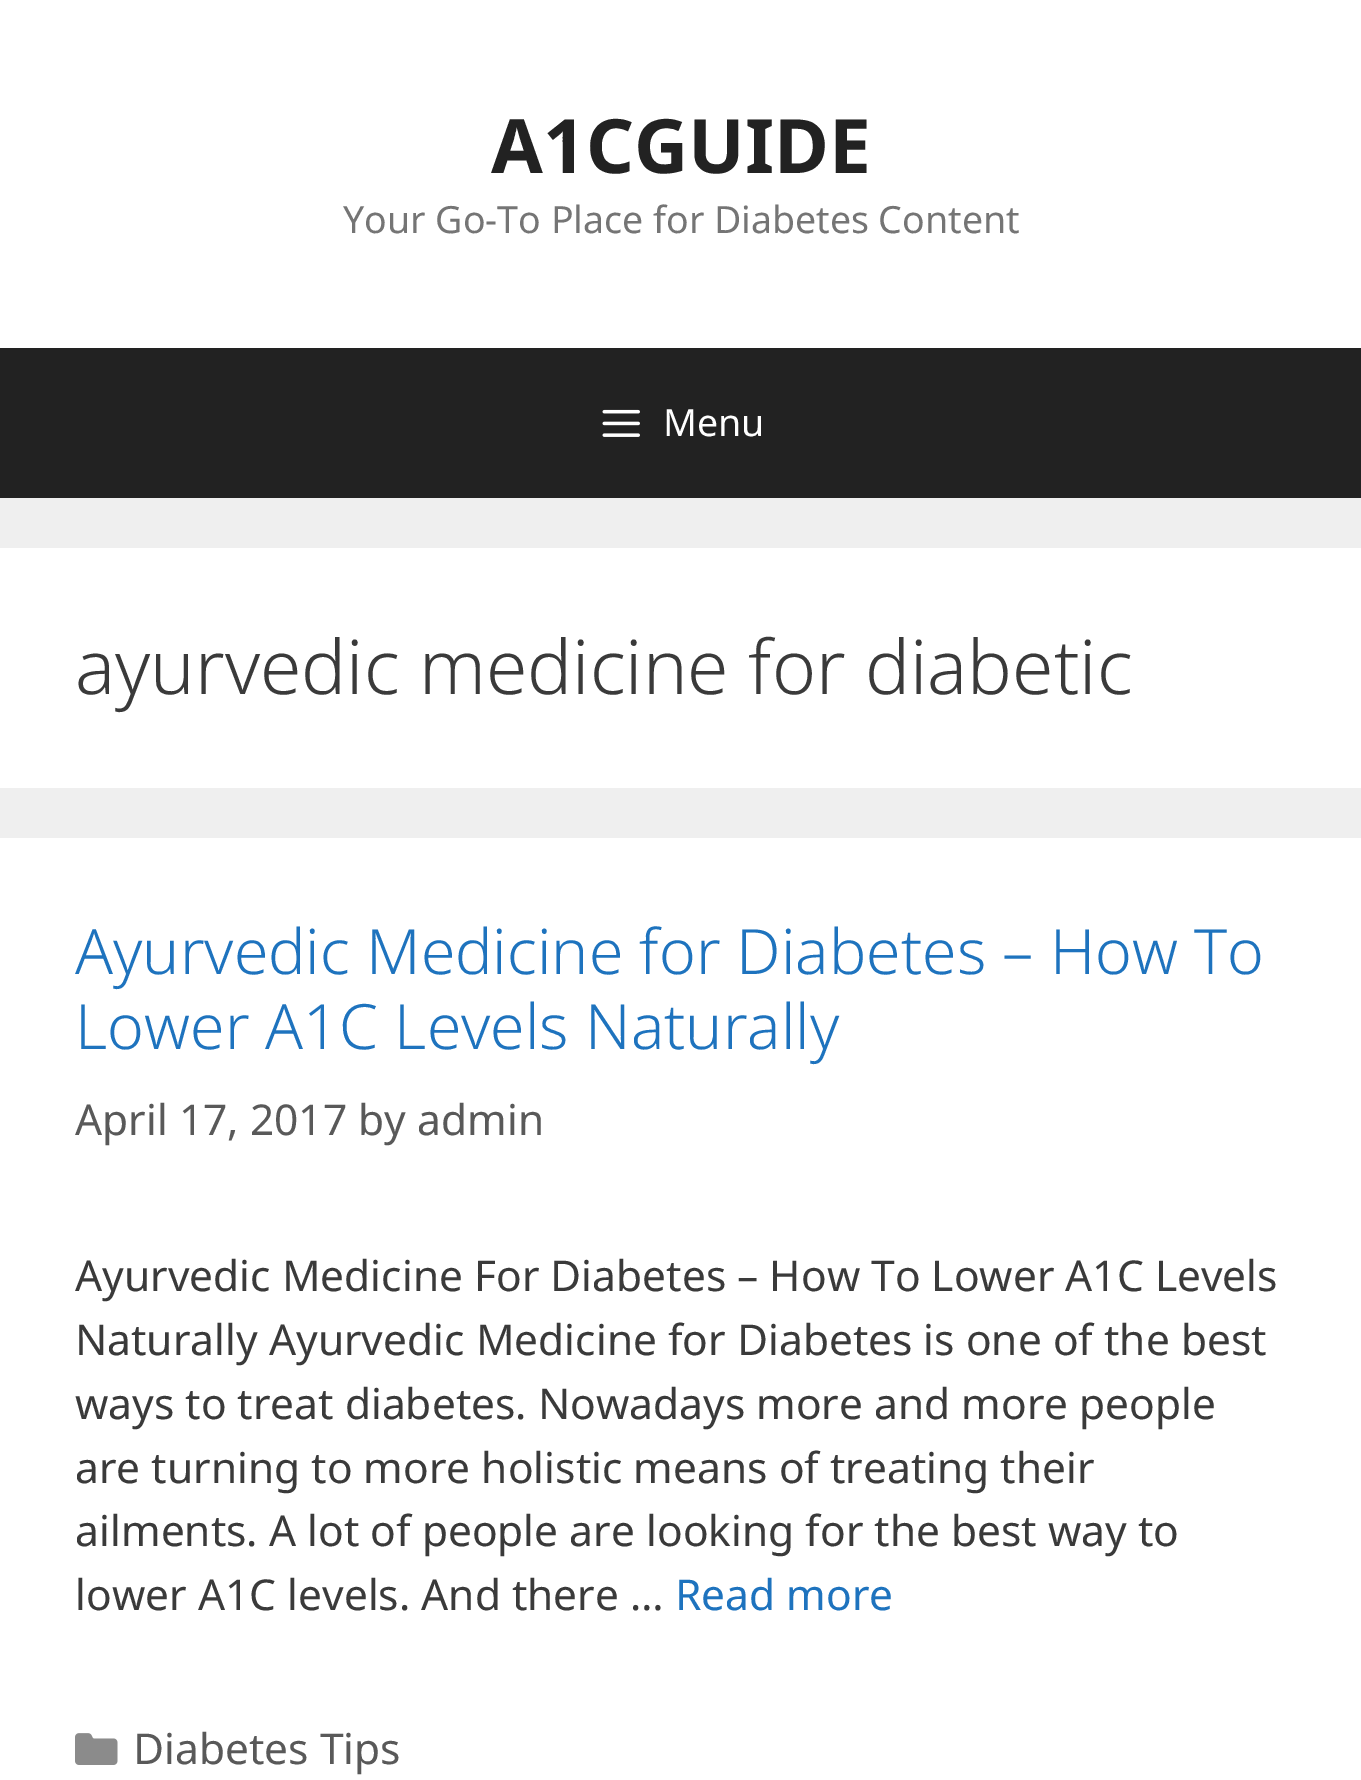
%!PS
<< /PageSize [1361 1780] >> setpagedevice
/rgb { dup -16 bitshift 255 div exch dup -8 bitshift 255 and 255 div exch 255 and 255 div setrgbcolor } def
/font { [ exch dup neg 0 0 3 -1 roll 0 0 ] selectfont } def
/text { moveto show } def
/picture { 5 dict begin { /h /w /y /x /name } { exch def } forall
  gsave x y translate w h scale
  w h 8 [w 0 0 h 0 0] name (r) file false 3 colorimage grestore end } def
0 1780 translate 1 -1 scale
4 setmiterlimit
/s1 { /NotoSans-Bold 75 font 16#222222 rgb } def
/s2 { /NotoSans-Regular 37.5 font 16#757575 rgb } def
/s3 { /NotoSans-Regular 37.5 font 16#FFFFFF rgb } def
/s4 { /NotoSans-Light 75 font 16#3A3A3A rgb } def
/s5 { /NotoSans-Light 62.5 font 16#1E73BE rgb } def
/s6 { /NotoSans-Regular 42.5 font 16#595959 rgb } def
/s7 { /NotoSans-Regular 42.5 font 16#3A3A3A rgb } def
/s8 { /NotoSans-Regular 42.5 font 16#1E73BE rgb } def
16#EFEFEF rgb
0 0 1361 1780 rectfill
16#FFFFFF rgb
0 0 1361 348 rectfill
s1
(A1CGUIDE) 491 173 text
s2
(Your Go-To Place for Diabetes Content) 343 233 text
16#222222 rgb
0 348 1361 150 rectfill
(pic1.raw) 602 409 38 28 picture
s3
(Menu) 663 436 text
0 548 1361 240 rectfill
s4
(ayurvedic medicine for diabetic) 75 694 text
16#FFFFFF rgb
0 838 1361 942 rectfill
s5
(Ayurvedic Medicine for Diabetes – How To) 75 974 text
(Lower A1C Levels Naturally) 75 1049 text
s6
(April 17, 2017 by admin) 75 1135 text
s7
(Ayurvedic Medicine For Diabetes – How To Lower A1C Levels) 75 1291 text
(Naturally Ayurvedic Medicine for Diabetes is one of the best) 75 1355 text
(ways to treat diabetes. Nowadays more and more people) 75 1419 text
(are turning to more holistic means of treating their) 75 1483 text
(ailments. A lot of people are looking for the best way to) 75 1546 text
(lower A1C levels. And there …) 75 1610 text
s8
(Read more) 675 1610 text
(pic2.raw) 75 1733 43 32 picture
s6
(Diabetes Tips) 133 1764 text
showpage
